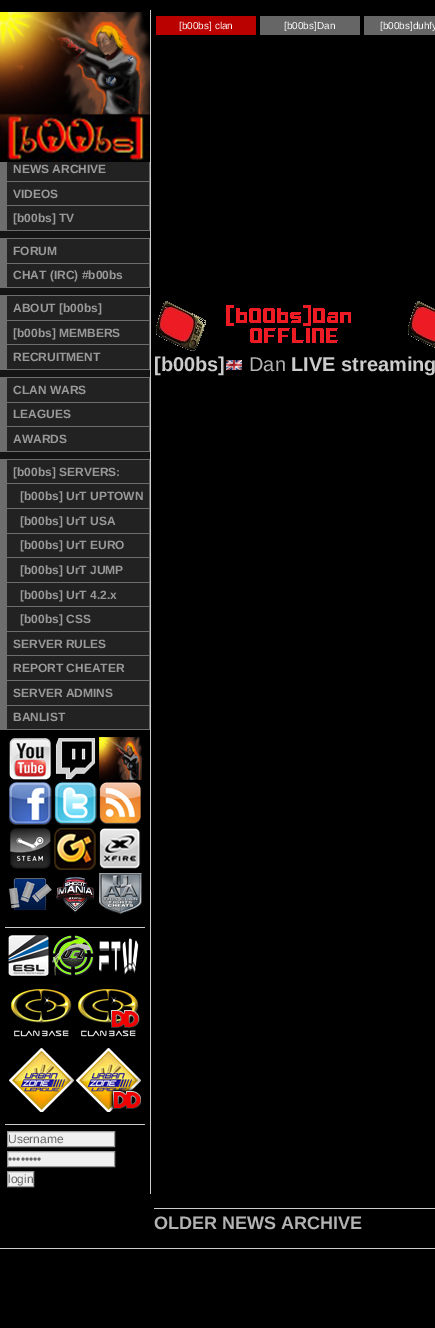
%!PS
<< /PageSize [435 1328] >> setpagedevice
/rgb { dup -16 bitshift 255 div exch dup -8 bitshift 255 and 255 div exch 255 and 255 div setrgbcolor } def
/font { [ exch dup neg 0 0 3 -1 roll 0 0 ] selectfont } def
/text { moveto show } def
/picture { 5 dict begin { /h /w /y /x /name } { exch def } forall
  gsave x y translate w h scale
  w h 8 [w 0 0 h 0 0] name (r) file false 3 colorimage grestore end } def
0 1328 translate 1 -1 scale
4 setmiterlimit
/s1 { /LiberationSans-Bold 12 font 16#999999 rgb } def
/s2 { /LiberationSans-Regular 12 font 16#666666 rgb } def
/s3 { /LiberationSans-Regular 10 font 16#FFFFFF rgb } def
/s4 { /LiberationSans-Bold 20 font 16#CCCCCC rgb } def
/s5 { /LiberationSans-Regular 20 font 16#B3B3B3 rgb } def
/s6 { /LiberationSans-Bold 18 font 16#B3B3B3 rgb } def
16#000000 rgb
0 0 435 1328 rectfill
16#CCCCCC rgb
150 10 1 1184 rectfill
(pic1.raw) 0 12 150 150 picture
16#151515 rgb
0 231 150 7 rectfill
16#6E6D6D rgb
0 181 150 1 rectfill
16#222222 rgb
7 162 142 19 rectfill
16#6E6D6D rgb
149 162 1 19 rectfill
0 162 7 19 rectfill
s1
(NEWS ARCHIVE) 13 173 text
16#6E6D6D rgb
0 205 150 1 rectfill
16#222222 rgb
7 182 142 23 rectfill
16#6E6D6D rgb
149 182 1 23 rectfill
0 182 7 23 rectfill
s1
(VIDEOS) 13 198 text
16#6E6D6D rgb
0 230 150 1 rectfill
16#222222 rgb
7 206 142 24 rectfill
16#6E6D6D rgb
149 206 1 24 rectfill
0 206 7 24 rectfill
s1
([b00bs] TV) 13 222 text
16#6E6D6D rgb
0 238 150 1 rectfill
16#151515 rgb
0 288 150 7 rectfill
16#6E6D6D rgb
0 263 150 1 rectfill
16#222222 rgb
7 239 142 24 rectfill
16#6E6D6D rgb
149 239 1 24 rectfill
0 239 7 24 rectfill
s1
(FORUM) 13 255 text
16#6E6D6D rgb
0 287 150 1 rectfill
16#222222 rgb
7 264 142 23 rectfill
16#6E6D6D rgb
149 264 1 23 rectfill
0 264 7 23 rectfill
s1
(CHAT \(IRC\) #b00bs) 13 279 text
16#6E6D6D rgb
0 295 150 1 rectfill
16#151515 rgb
0 370 150 7 rectfill
16#6E6D6D rgb
0 320 150 1 rectfill
16#222222 rgb
7 296 142 24 rectfill
16#6E6D6D rgb
149 296 1 24 rectfill
0 296 7 24 rectfill
s1
(ABOUT [b00bs]) 13 312 text
16#6E6D6D rgb
0 344 150 1 rectfill
16#222222 rgb
7 321 142 23 rectfill
16#6E6D6D rgb
149 321 1 23 rectfill
0 321 7 23 rectfill
s1
([b00bs] MEMBERS) 13 337 text
16#6E6D6D rgb
0 369 150 1 rectfill
16#222222 rgb
7 345 142 24 rectfill
16#6E6D6D rgb
149 345 1 24 rectfill
0 345 7 24 rectfill
s1
(RECRUITMENT) 13 361 text
16#6E6D6D rgb
0 377 150 1 rectfill
16#151515 rgb
0 452 150 7 rectfill
16#6E6D6D rgb
0 402 150 1 rectfill
16#222222 rgb
7 378 142 24 rectfill
16#6E6D6D rgb
149 378 1 24 rectfill
0 378 7 24 rectfill
s1
(CLAN WARS) 13 394 text
16#6E6D6D rgb
0 426 150 1 rectfill
16#222222 rgb
7 403 142 23 rectfill
16#6E6D6D rgb
149 403 1 23 rectfill
0 403 7 23 rectfill
s1
(LEAGUES) 13 418 text
16#6E6D6D rgb
0 451 150 1 rectfill
16#222222 rgb
7 427 142 24 rectfill
16#6E6D6D rgb
149 427 1 24 rectfill
0 427 7 24 rectfill
s1
(AWARDS) 13 443 text
16#6E6D6D rgb
0 459 150 1 rectfill
0 483 150 1 rectfill
16#222222 rgb
7 460 142 23 rectfill
16#6E6D6D rgb
149 460 1 23 rectfill
0 460 7 23 rectfill
s1
([b00bs] SERVERS:) 13 476 text
16#6E6D6D rgb
0 508 150 1 rectfill
16#222222 rgb
7 484 142 24 rectfill
16#6E6D6D rgb
149 484 1 24 rectfill
0 484 7 24 rectfill
s1
([b00bs] UrT UPTOWN) 20 500 text
16#6E6D6D rgb
0 533 150 1 rectfill
16#222222 rgb
7 509 142 24 rectfill
16#6E6D6D rgb
149 509 1 24 rectfill
0 509 7 24 rectfill
s1
([b00bs] UrT USA) 20 525 text
16#6E6D6D rgb
0 557 150 1 rectfill
16#222222 rgb
7 534 142 23 rectfill
16#6E6D6D rgb
149 534 1 23 rectfill
0 534 7 23 rectfill
s1
([b00bs] UrT EURO) 20 549 text
16#6E6D6D rgb
0 582 150 1 rectfill
16#222222 rgb
7 558 142 24 rectfill
16#6E6D6D rgb
149 558 1 24 rectfill
0 558 7 24 rectfill
s1
([b00bs] UrT JUMP) 20 574 text
16#6E6D6D rgb
0 606 150 1 rectfill
16#222222 rgb
7 583 142 23 rectfill
16#6E6D6D rgb
149 583 1 23 rectfill
0 583 7 23 rectfill
s1
([b00bs] UrT 4.2.x) 20 599 text
16#6E6D6D rgb
0 631 150 1 rectfill
16#222222 rgb
7 607 142 24 rectfill
16#6E6D6D rgb
149 607 1 24 rectfill
0 607 7 24 rectfill
s1
([b00bs] CSS) 20 623 text
16#6E6D6D rgb
0 655 150 1 rectfill
16#222222 rgb
7 632 142 23 rectfill
16#6E6D6D rgb
149 632 1 23 rectfill
0 632 7 23 rectfill
s1
(SERVER RULES) 13 648 text
16#6E6D6D rgb
0 680 150 1 rectfill
16#222222 rgb
7 656 142 24 rectfill
16#6E6D6D rgb
149 656 1 24 rectfill
0 656 7 24 rectfill
s1
(REPORT CHEATER) 13 672 text
16#6E6D6D rgb
0 705 150 1 rectfill
16#222222 rgb
7 681 142 24 rectfill
16#6E6D6D rgb
149 681 1 24 rectfill
0 681 7 24 rectfill
s1
(SERVER ADMINS) 13 697 text
16#6E6D6D rgb
0 729 150 1 rectfill
16#222222 rgb
7 706 142 23 rectfill
16#6E6D6D rgb
149 706 1 23 rectfill
0 706 7 23 rectfill
s1
(BANLIST) 13 721 text
(pic2.raw) 9 738 43 42 picture
(pic3.raw) 55 738 41 42 picture
(pic4.raw) 99 737 43 43 picture
(pic5.raw) 9 782 43 43 picture
(pic6.raw) 54 782 43 43 picture
(pic7.raw) 99 782 42 43 picture
(pic8.raw) 10 828 41 41 picture
(pic9.raw) 54 828 42 42 picture
(pic10.raw) 99 828 42 41 picture
(pic11.raw) 9 878 43 32 picture
(pic12.raw) 56 876 38 37 picture
(pic13.raw) 99 873 43 42 picture
16#CCCCCC rgb
5 927 140 1 rectfill
(pic14.raw) 8 935 41 41 picture
(pic15.raw) 52 935 42 41 picture
(pic16.raw) 99 938 40 37 picture
(pic17.raw) 11 989 61 48 picture
(pic18.raw) 78 989 62 48 picture
(pic19.raw) 9 1048 65 64 picture
(pic20.raw) 76 1048 65 64 picture
5 1124 140 1 rectfill
16#F0F0F0 rgb
7.5 1131.5 moveto 114.5 1131.5 lineto 114.5 1146.5 lineto 7.5 1146.5 lineto closepath gsave fill grestore
16#989898 rgb
stroke
s2
(Username) 8 1143 text
16#F0F0F0 rgb
7.5 1151.5 moveto 114.5 1151.5 lineto 114.5 1166.5 lineto 7.5 1166.5 lineto closepath gsave fill grestore
16#989898 rgb
stroke
s2
(••••••••) 8 1163 text
16#F0F0F0 rgb
7.5 1171.5 moveto 33.5 1171.5 lineto 33.5 1186.5 lineto 7.5 1186.5 lineto closepath gsave fill grestore
16#989898 rgb
stroke
s2
(login) 8 1183 text
16#BB0000 rgb
156 16 100 19 rectfill
s3
([b00bs] clan) 179 29 text
16#666666 rgb
260 16 100 19 rectfill
s3
([b00bs]Dan) 284 29 text
16#666666 rgb
364 16 71 19 rectfill
s3
([b00bs]duhfy) 380 29 text
(pic21.raw) 156 301 195 50 picture
(pic22.raw) 408 301 27 47 picture
s4
([b00bs]) 154 371 text
(pic23.raw) 226 360 16 10 picture
s5
(Dan) 249 371 text
s4
(LIVE streaming) 291 371 text
154 1208 281 1 rectfill
s6
(OLDER NEWS ARCHIVE) 154 1229 text
16#CCCCCC rgb
0 1248 435 1 rectfill
showpage
